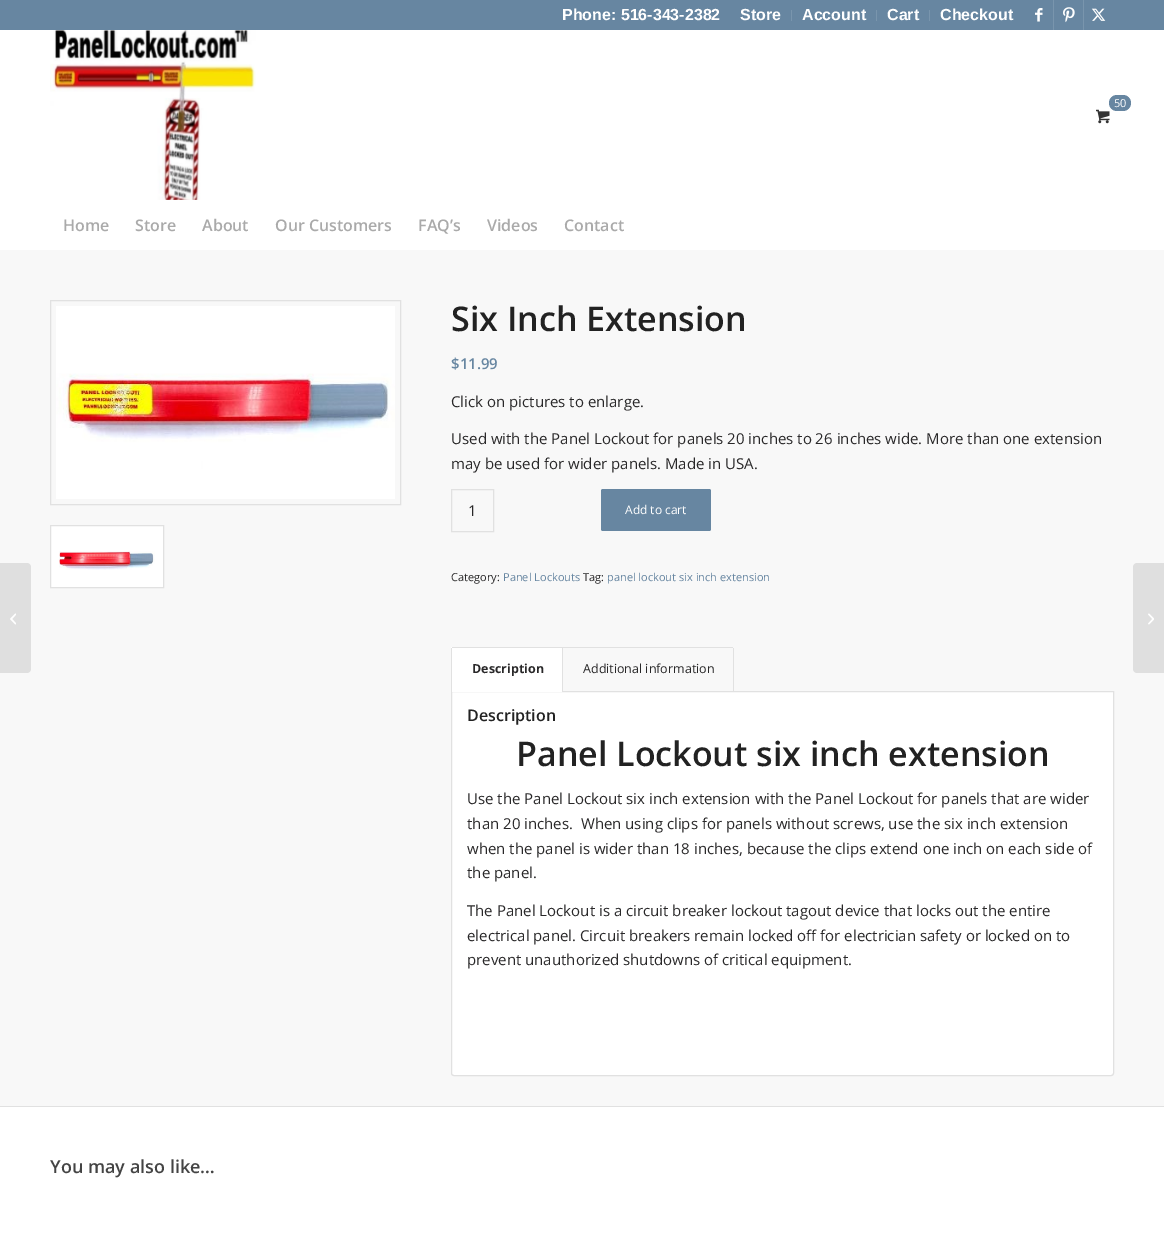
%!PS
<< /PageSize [1164 1235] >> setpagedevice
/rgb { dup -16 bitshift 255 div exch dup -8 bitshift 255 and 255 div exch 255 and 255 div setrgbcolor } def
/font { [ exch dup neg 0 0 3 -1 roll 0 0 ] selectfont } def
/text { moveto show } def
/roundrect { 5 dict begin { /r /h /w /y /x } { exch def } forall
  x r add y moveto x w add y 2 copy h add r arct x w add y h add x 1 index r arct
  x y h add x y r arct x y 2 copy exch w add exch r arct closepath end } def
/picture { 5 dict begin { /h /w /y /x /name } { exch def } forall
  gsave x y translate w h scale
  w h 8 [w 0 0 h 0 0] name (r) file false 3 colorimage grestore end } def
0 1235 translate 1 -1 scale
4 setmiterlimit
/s1 { /LiberationSans-Bold 16 font 16#FFFFFF rgb } def
/s2 { /OpenSans-Regular 11 font 16#FFFFFF rgb } def
/s3 { /OpenSans-SemiBold 16 font 16#AAAAAA rgb } def
/s4 { /OpenSans-SemiBold 34 font 16#222222 rgb } def
/s5 { /OpenSans-SemiBold 15 font 16#6786A1 rgb } def
/s6 { /OpenSans-Regular 15 font 16#292829 rgb } def
/s7 { /OpenSans-Regular 12 font 16#FFFFFF rgb } def
/s8 { /OpenSans-Regular 11 font 16#292829 rgb } def
/s9 { /OpenSans-Regular 11 font 16#6786A1 rgb } def
/s10 { /OpenSans-Bold 12.5 font 16#292829 rgb } def
/s11 { /OpenSans-Regular 12.5 font 16#292829 rgb } def
/s12 { /OpenSans-SemiBold 16 font 16#222222 rgb } def
/s13 { /OpenSans-SemiBold 18 font 16#444444 rgb } def
16#FFFFFF rgb
0 0 1164 1235 rectfill
16#6786A1 rgb
0 0 1164 30 rectfill
s1
(Phone: 516-343-2382) 562 20 text
16#7995AD rgb
791 10 1 11 rectfill
s1
(Store) 740 20 text
16#7995AD rgb
876 10 1 11 rectfill
s1
(Account) 802 20 text
16#7995AD rgb
929 10 1 11 rectfill
s1
(Cart) 887 20 text
(Checkout) 940 20 text
16#7995AD rgb
1053 0 1 30 rectfill
(pic1.raw) 1035 8 8 14 picture
1083 0 1 30 rectfill
(pic2.raw) 1063 7 12 16 picture
(pic3.raw) 1091 8 15 13 picture
(pic4.raw) 50 30 206 170 picture
(pic5.raw) 1096 109 14 15 picture
16#6786A1 rgb
1109 95 22 16 8 roundrect fill
s2
(50) 1114 107 text
s3
(Home) 63 231 text
(Store) 135 231 text
(About) 202 231 text
(Our Customers) 275 231 text
(FAQ’s) 418 231 text
(Videos) 487 231 text
(Contact) 564 231 text
16#F8F8F8 rgb
0 250 1164 856 rectfill
16#DFDFDF rgb
0 563 moveto 27 563 lineto 29 563 31 565 31 567 curveto 31 669 lineto 31 671 29 673 27 673 curveto 0 673 lineto closepath fill
(pic6.raw) 10 613 6 12 picture
16#E1E1E1 rgb
50.5 300.5 350 204 rectstroke
(pic7.raw) 56 306 339 193 picture
16#FFFFFF rgb
50.5 525.5 moveto 163.5 525.5 lineto 163.5 587.5 lineto 50.5 587.5 lineto closepath gsave fill grestore
16#E1E1E1 rgb
stroke
(pic8.raw) 59 551 96 19 picture
s4
(Six Inch Extension) 451 331 text
s5
($11.99) 451 369 text
s6
(Click on pictures to enlarge.) 451 407 text
(Used with the Panel Lockout for panels 20 inches to 26 inches wide. More than one extension) 451 444 text
(may be used for wider panels. Made in USA.) 451 469 text
16#E1E1E1 rgb
451.5 489.5 42 42 rectstroke
s6
(1) 468 516 text
16#6786A1 rgb
601 489 110 42 2 roundrect fill
s7
(Add to cart) 625 514 text
s8
(Category:) 451 581 text
s9
(Panel Lockouts) 503 581 text
s8
(Tag:) 583 581 text
s9
(panel lockout six inch extension) 607 581 text
16#FFFFFF rgb
451.5 691.5 moveto 1113.5 691.5 lineto 1113.5 1073 lineto 1113.5 1074.5 1112.5 1075.5 1111 1075.5 curveto 454 1075.5 lineto 452.5 1075.5 451.5 1074.5 451.5 1073 curveto closepath gsave fill grestore
16#E1E1E1 rgb
stroke
16#FFFFFF rgb
451 647 111 45 rectfill
16#E1E1E1 rgb
562 647 171 1 rectfill
452 647 111 1 rectfill
562 647 1 45 rectfill
451 648 1 44 rectfill
s10
(Description) 472 673 text
16#E1E1E1 rgb
733 648 1 44 rectfill
s11
(Additional information) 583 673 text
s12
(Description) 467 721 text
s4
(Panel Lockout six inch extension) 516 766 text
s6
(Use the Panel Lockout six inch extension with the Panel Lockout for panels that are wider) 467 804 text
(than 20 inches.  When using clips for panels without screws, use the six inch extension) 467 829 text
(when the panel is wider than 18 inches, because the clips extend one inch on each side of) 467 854 text
(the panel.) 467 878 text
(The Panel Lockout is a circuit breaker lockout tagout device that locks out the entire) 467 916 text
(electrical panel. Circuit breakers remain locked off for electrician safety or locked on to) 467 941 text
(prevent unauthorized shutdowns of critical equipment.) 467 965 text
16#E1E1E1 rgb
0 1106 1164 1 rectfill
s13
(You may also like…) 50 1173 text
16#DFDFDF rgb
1137 563 moveto 1164 563 lineto 1164 673 lineto 1137 673 lineto 1135 673 1133 671 1133 669 curveto 1133 567 lineto 1133 565 1135 563 1137 563 curveto closepath fill
(pic9.raw) 1148 613 6 12 picture
showpage
